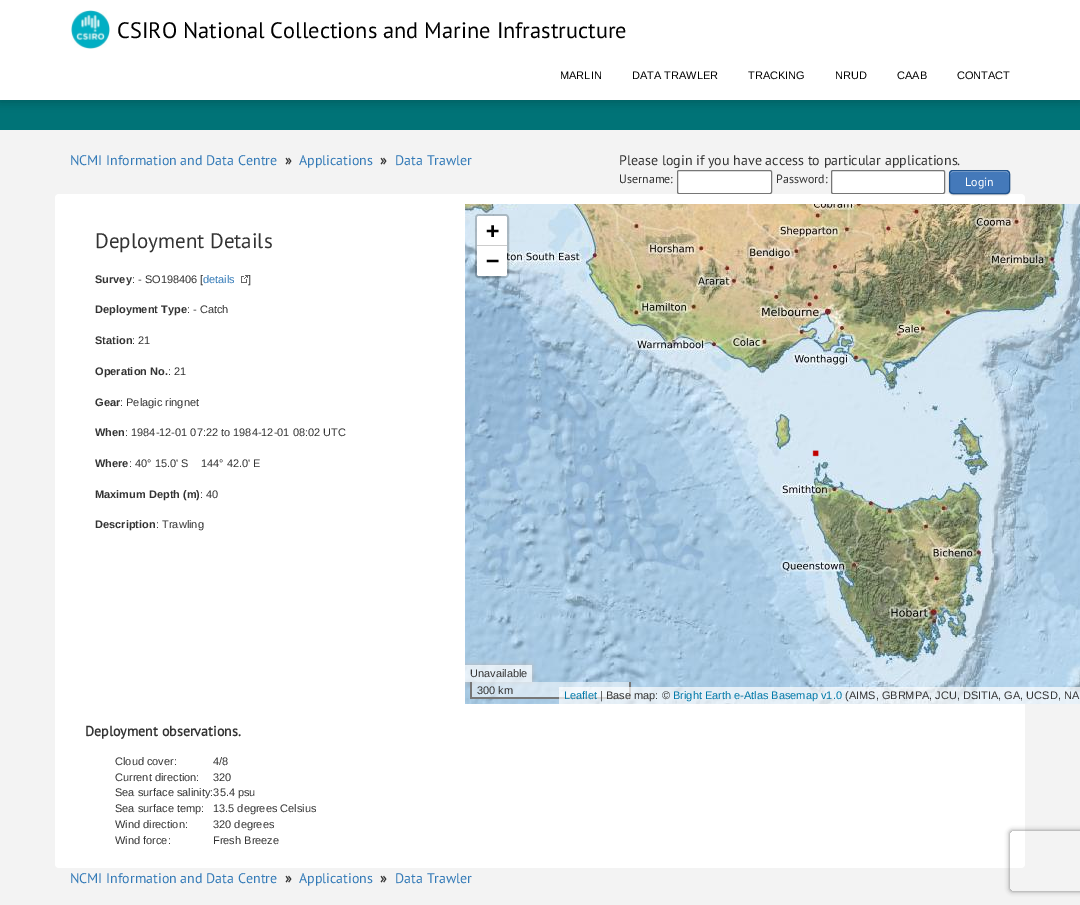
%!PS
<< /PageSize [1080 905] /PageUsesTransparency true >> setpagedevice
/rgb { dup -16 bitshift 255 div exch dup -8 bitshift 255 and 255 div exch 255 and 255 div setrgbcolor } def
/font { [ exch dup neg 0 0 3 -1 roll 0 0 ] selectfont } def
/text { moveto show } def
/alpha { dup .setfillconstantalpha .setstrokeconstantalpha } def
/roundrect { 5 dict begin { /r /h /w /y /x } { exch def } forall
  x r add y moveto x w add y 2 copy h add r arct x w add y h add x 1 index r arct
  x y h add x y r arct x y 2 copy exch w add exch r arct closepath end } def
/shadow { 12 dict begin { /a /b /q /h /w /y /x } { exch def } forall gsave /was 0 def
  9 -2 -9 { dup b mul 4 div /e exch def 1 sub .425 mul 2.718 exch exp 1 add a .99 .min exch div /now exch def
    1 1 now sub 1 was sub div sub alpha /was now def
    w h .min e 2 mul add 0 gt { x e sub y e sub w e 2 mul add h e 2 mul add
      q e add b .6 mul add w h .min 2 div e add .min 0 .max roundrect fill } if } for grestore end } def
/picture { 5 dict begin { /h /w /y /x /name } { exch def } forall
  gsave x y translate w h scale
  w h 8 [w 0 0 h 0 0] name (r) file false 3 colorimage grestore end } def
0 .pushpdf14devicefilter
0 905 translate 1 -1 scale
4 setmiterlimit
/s1 { /PTSans-Regular 22.4 font 16#000000 rgb } def
/s2 { /LiberationSans-Regular 11 font 16#000000 rgb } def
/s3 { /PTSans-Regular 14 font 16#337AB7 rgb } def
/s4 { /PTSans-Bold 14 font 16#333333 rgb } def
/s5 { /PTSans-Regular 14 font 16#333333 rgb } def
/s6 { /PTSans-Regular 12 font 16#333333 rgb } def
/s7 { /PTSans-Regular 12 font 16#FFFFFF rgb } def
/s8 { /PTSans-Regular 21 font 16#333333 rgb } def
/s9 { /LiberationSans-Bold 11 font 16#333333 rgb } def
/s10 { /LiberationSans-Regular 11 font 16#333333 rgb } def
/s11 { /LiberationSans-Regular 11 font 16#337AB7 rgb } def
/s12 { /DejaVuSansMono-Bold 22 font 16#000000 rgb } def
/s13 { /LiberationSans-Regular 11 font 16#0078A8 rgb } def
16#F3F3F3 rgb
0 0 1080 905 rectfill
16#007377 rgb
0 100 1080 30 rectfill
16#000000 rgb
0 2 1080 100 0 5 0.2 shadow
16#FFFFFF rgb
0 0 1080 100 rectfill
(pic1.raw) 71 10 39 39 picture
s1
(CSIRO National Collections and Marine Infrastructure) 117 38 text
s2
(MARLIN) 560 79 text
(DATA TRAWLER) 632 79 text
(TRACKING) 748 79 text
(NRUD) 835 79 text
(CAAB) 897 79 text
(CONTACT) 957 79 text
s3
(NCMI Information and Data Centre) 70 165 text
s4
(») 285 165 text
s3
(Applications) 299 165 text
s4
(») 380 165 text
s3
(Data Trawler) 395 165 text
s5
(Please login if you have access to particular applications.) 619 165 text
s6
(Username:) 619 183 text
16#FFFFFF rgb
677.5 170.5 94 23 1.5 roundrect gsave fill grestore
16#767676 rgb
stroke
s6
(Password:) 776 183 text
16#FFFFFF rgb
831.5 170.5 113 23 1.5 roundrect gsave fill grestore
16#767676 rgb
stroke
16#FFFFFF rgb
55 194 970 674 4 roundrect fill
16#000000 rgb
949 171 61 24 4 0.5 0.2 shadow
16#4479BA rgb
949 170 61 24 4 roundrect fill
16#8FAFD6 rgb
953 172 moveto 1006 172 lineto 1008 172 1009 173 1009 175 curveto 1009 169 1002 171 997 171 curveto 962 171 lineto 957 171 950 169 950 175 curveto 950 173 951 172 953 172 curveto closepath fill
16#20538D rgb
949.5 170.5 60 23 3.5 roundrect stroke
s7
(Login) 965 186 text
gsave
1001 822 moveto 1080 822 lineto 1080 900 lineto 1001 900 lineto closepath 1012 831 moveto 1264 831 lineto 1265 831 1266 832 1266 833 curveto 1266 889 lineto 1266 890 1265 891 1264 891 curveto 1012 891 lineto 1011 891 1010 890 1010 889 curveto 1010 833 lineto 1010 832 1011 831 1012 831 curveto closepath eoclip newpath
16#808080 rgb
1010 831 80 60 2 2.5 1 shadow
grestore
s8
(Deployment Details) 95 248 text
s9
(Survey) 95 283 text
s10
(: - SO198406 [) 132 283 text
s11
(details) 203 283 text
(pic2.raw) 241 275 7 8 picture
s10
(]) 248 283 text
s9
(Deployment Type) 95 313 text
s10
(: - Catch) 187 313 text
s9
(Station) 95 344 text
s10
(: 21) 132 344 text
s9
(Operation No.) 95 375 text
s10
(: 21) 168 375 text
s9
(Gear) 95 406 text
s10
(: Pelagic ringnet) 120 406 text
s9
(When) 95 436 text
s10
(: 1984-12-01 07:22 to 1984-12-01 08:02 UTC) 125 436 text
s9
(Where) 95 467 text
s10
(: 40° 15.0' S    144° 42.0' E) 129 467 text
s9
(Maximum Depth \(m\)) 95 498 text
s10
(: 40) 200 498 text
s9
(Description) 95 528 text
s10
(: Trawling) 156 528 text
(pic3.raw) 465 204 165 38 picture
(pic4.raw) 630 204 256 38 picture
(pic5.raw) 886 204 194 38 picture
(pic6.raw) 465 242 165 256 picture
(pic7.raw) 630 242 256 256 picture
(pic8.raw) 886 242 194 256 picture
(pic9.raw) 465 498 165 206 picture
(pic10.raw) 630 498 256 206 picture
(pic11.raw) 886 498 194 206 picture
(pic12.raw) 812 450 7 7 picture
0.2 alpha
16#000000 rgb
2 setlinewidth
476 215 32 62 3 roundrect stroke
1 alpha
16#FFFFFF rgb
479 216 moveto 505 216 lineto 506 216 507 217 507 218 curveto 507 246 lineto 477 246 lineto 477 218 lineto 477 217 478 216 479 216 curveto closepath fill
16#CCCCCC rgb
477 245 30 1 rectfill
s12
(+) 486 238 text
16#FFFFFF rgb
477 246 moveto 507 246 lineto 507 274 lineto 507 275 506 276 505 276 curveto 479 276 lineto 478 276 477 275 477 274 curveto closepath fill
s12
(−) 486 268 text
gsave
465 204 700 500 rectclip
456 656 moveto 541 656 lineto 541 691 lineto 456 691 lineto closepath 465 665 moveto 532 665 lineto 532 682 lineto 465 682 lineto closepath eoclip newpath
16#BBBBBB rgb
465 665 67 17 0 2.5 1 shadow
grestore
0.7 alpha
16#FFFFFF rgb
465 665 67 17 rectfill
1 alpha
s10
(Unavailable) 470 677 text
0.5 alpha
16#FFFFFF rgb
472 682 157 15 rectfill
1 alpha
16#777777 rgb
629 682 2 17 rectfill
470 697 161 2 rectfill
470 682 2 17 rectfill
s10
(300 km) 477 694 text
0.7 alpha
16#FFFFFF rgb
559 687 521 17 rectfill
1 alpha
s13
(Leaflet) 564 699 text
s10
(| Base map: ©) 600 699 text
s13
(Bright Earth e-Atlas Basemap v1.0) 673 699 text
s10
(\(AIMS, GBRMPA, JCU, DSITIA, GA, UCSD, NA) 845 699 text
s4
(Deployment observations.) 85 736 text
s10
(Cloud cover:) 115 765 text
(4/8) 213 765 text
(Current direction:) 115 781 text
(320) 213 781 text
(Sea surface salinity:35.4 psu) 115 796 text
(Sea surface temp:) 115 812 text
(13.5 degrees Celsius) 213 812 text
(Wind direction:) 115 828 text
(320 degrees) 213 828 text
(Wind force:) 115 844 text
(Fresh Breeze) 213 844 text
s3
(NCMI Information and Data Centre) 70 883 text
s4
(») 285 883 text
s3
(Applications) 299 883 text
s4
(») 380 883 text
s3
(Data Trawler) 395 883 text
.poppdf14devicefilter showpage
